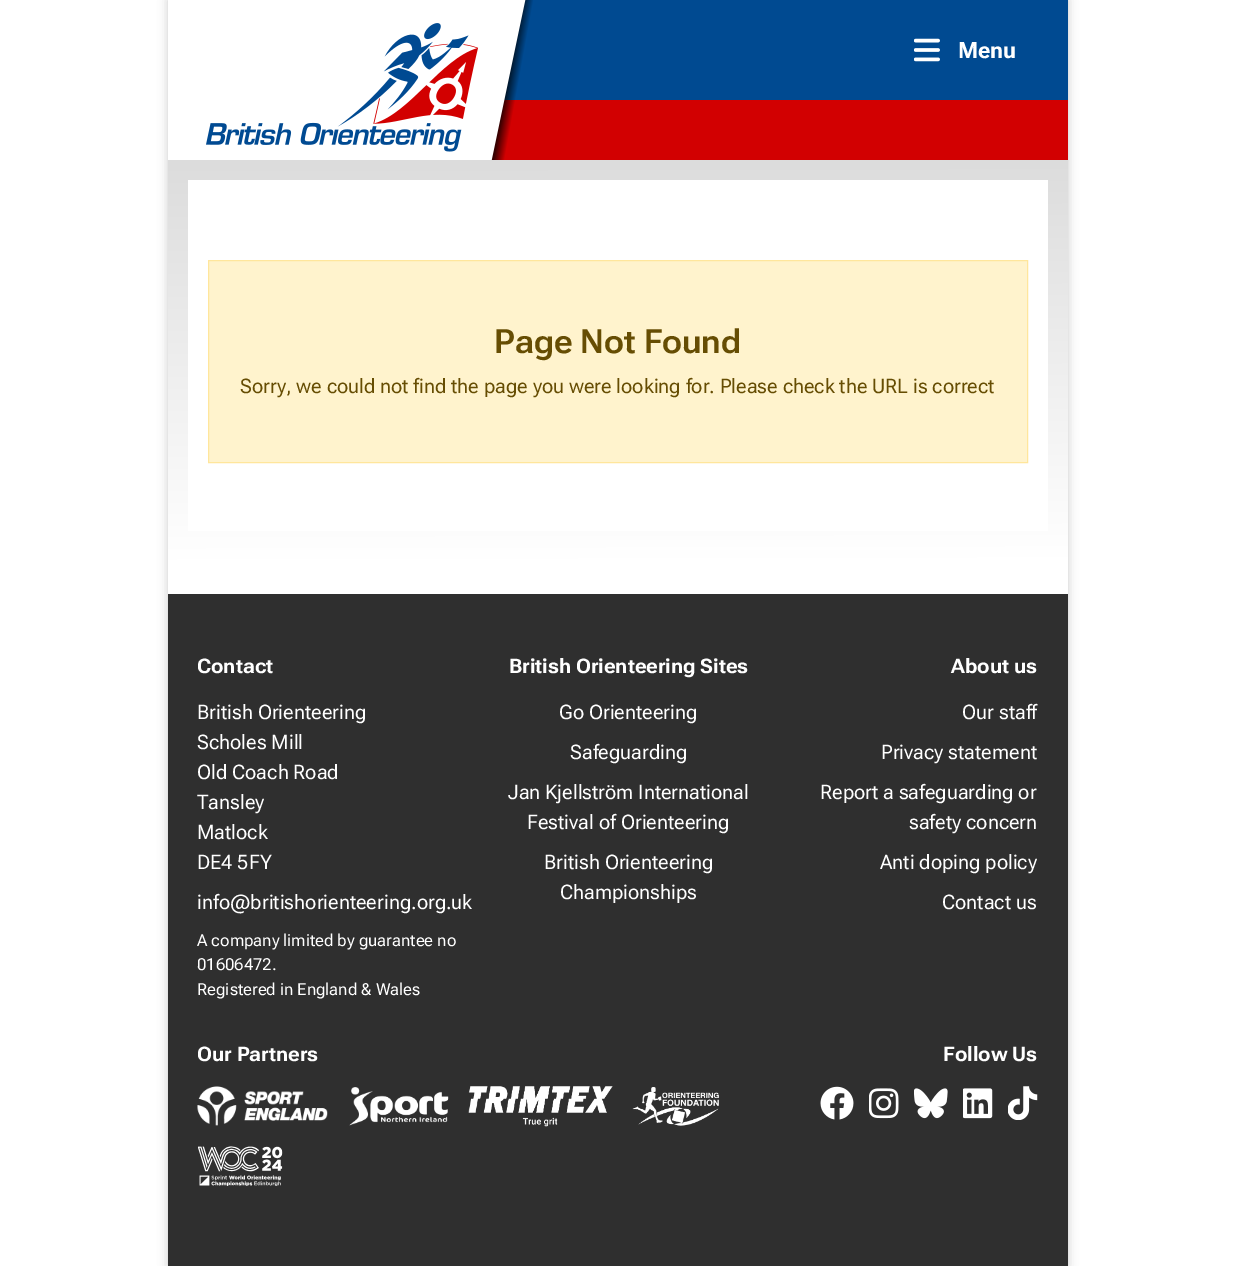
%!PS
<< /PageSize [1233 1266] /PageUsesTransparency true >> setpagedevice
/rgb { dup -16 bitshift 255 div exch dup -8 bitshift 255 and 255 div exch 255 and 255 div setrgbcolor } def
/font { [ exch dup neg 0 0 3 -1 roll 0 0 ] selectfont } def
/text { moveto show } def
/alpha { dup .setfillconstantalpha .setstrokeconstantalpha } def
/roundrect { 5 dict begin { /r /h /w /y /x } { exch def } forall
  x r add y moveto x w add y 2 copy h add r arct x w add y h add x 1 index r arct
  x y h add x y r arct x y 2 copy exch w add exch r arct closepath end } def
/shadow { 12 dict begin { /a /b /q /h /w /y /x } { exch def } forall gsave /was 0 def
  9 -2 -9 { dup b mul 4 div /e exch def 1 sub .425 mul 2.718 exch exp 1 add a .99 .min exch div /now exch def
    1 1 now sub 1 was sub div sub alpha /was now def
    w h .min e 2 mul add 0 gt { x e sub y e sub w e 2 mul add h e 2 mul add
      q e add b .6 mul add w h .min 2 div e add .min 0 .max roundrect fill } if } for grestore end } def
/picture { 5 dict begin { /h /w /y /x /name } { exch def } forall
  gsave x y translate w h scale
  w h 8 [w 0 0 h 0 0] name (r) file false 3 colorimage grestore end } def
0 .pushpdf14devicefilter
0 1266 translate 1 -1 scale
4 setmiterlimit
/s1 { /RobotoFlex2-Bold 22.5 font 16#FFFFFF rgb } def
/s2 { /RobotoFlex-SemiBold 33.5 font 16#664D03 rgb } def
/s3 { /RobotoFlex-Regular 20 font 16#664D03 rgb } def
/s4 { /RobotoFlex-Bold 20 font 16#FFFFFF rgb } def
/s5 { /RobotoFlex-Regular 20 font 16#FFFFFF rgb } def
/s6 { /RobotoFlex2-Regular 16.5 font 16#FFFFFF rgb } def
16#FFFFFF rgb
0 0 1233 1266 rectfill
gsave
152 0 moveto 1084 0 lineto 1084 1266 lineto 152 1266 lineto closepath 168 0 moveto 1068 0 lineto 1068 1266 lineto 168 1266 lineto closepath eoclip newpath
16#000000 rgb
168 0 900 1266 0 5 0.2 shadow
grestore
16#004A91 rgb
504 0 564 100 rectfill
16#D20001 rgb
491 100 577 60 rectfill
(pic1.raw) 168 0 365 160 picture
(pic2.raw) 914 38 26 24 picture
s1
(Menu) 958 58 text
gsave 168 160 moveto 1068 160 lineto 1068 560 lineto 168 560 lineto closepath clip newpath
<< /ShadingType 2 /ColorSpace /DeviceRGB /Coords [177 160 178 560] /Extend [true true] /Function << /FunctionType 2 /Domain [0 1] /C0 [0.863 0.863 0.863] /C1 [1 1 1] /N 1 >> >> shfill grestore
188 180 860 351 rectfill
16#FFF3CD rgb
208.5 260.5 moveto 1027.5 260.5 lineto 1027.5 462.5 lineto 208.5 462.5 lineto closepath gsave fill grestore
16#FFE69C rgb
stroke
s2
(Page Not Found) 494 353 text
s3
(Sorry, we could not find the page you were looking for. Please check the URL is correct) 240 393 text
16#2F2F2F rgb
168 594 900 672 rectfill
s4
(Contact) 197 673 text
s5
(British Orienteering) 197 719 text
(Scholes Mill) 197 749 text
(Old Coach Road) 197 779 text
(Tansley) 197 809 text
(Matlock) 197 839 text
(DE4 5FY) 197 869 text
(info@britishorienteering.org.uk) 197 909 text
s6
(A company limited by guarantee no) 197 946 text
(01606472.) 197 970 text
(Registered in England & Wales) 197 995 text
s4
(British Orienteering Sites) 509 673 text
s5
(Go Orienteering) 559 719 text
(Safeguarding) 570 759 text
(Jan Kjellström International) 508 799 text
(Festival of Orienteering) 527 829 text
(British Orienteering) 544 869 text
(Championships) 560 899 text
s4
(About us) 951 673 text
s5
(Our staff) 962 719 text
(Privacy statement) 881 759 text
(Report a safeguarding or) 820 799 text
(safety concern) 909 829 text
(Anti doping policy) 880 869 text
(Contact us) 942 909 text
s4
(Our Partners) 197 1061 text
(pic3.raw) 197 1086 131 40 picture
(pic4.raw) 349 1087 100 39 picture
(pic5.raw) 468 1086 145 41 picture
(pic6.raw) 632 1087 87 39 picture
(pic7.raw) 198 1146 85 40 picture
(Follow Us) 943 1061 text
(pic8.raw) 820 1086 34 34 picture
(pic9.raw) 869 1088 30 31 picture
(pic10.raw) 914 1088 34 31 picture
(pic11.raw) 963 1088 30 31 picture
(pic12.raw) 1008 1086 30 34 picture
.poppdf14devicefilter showpage
